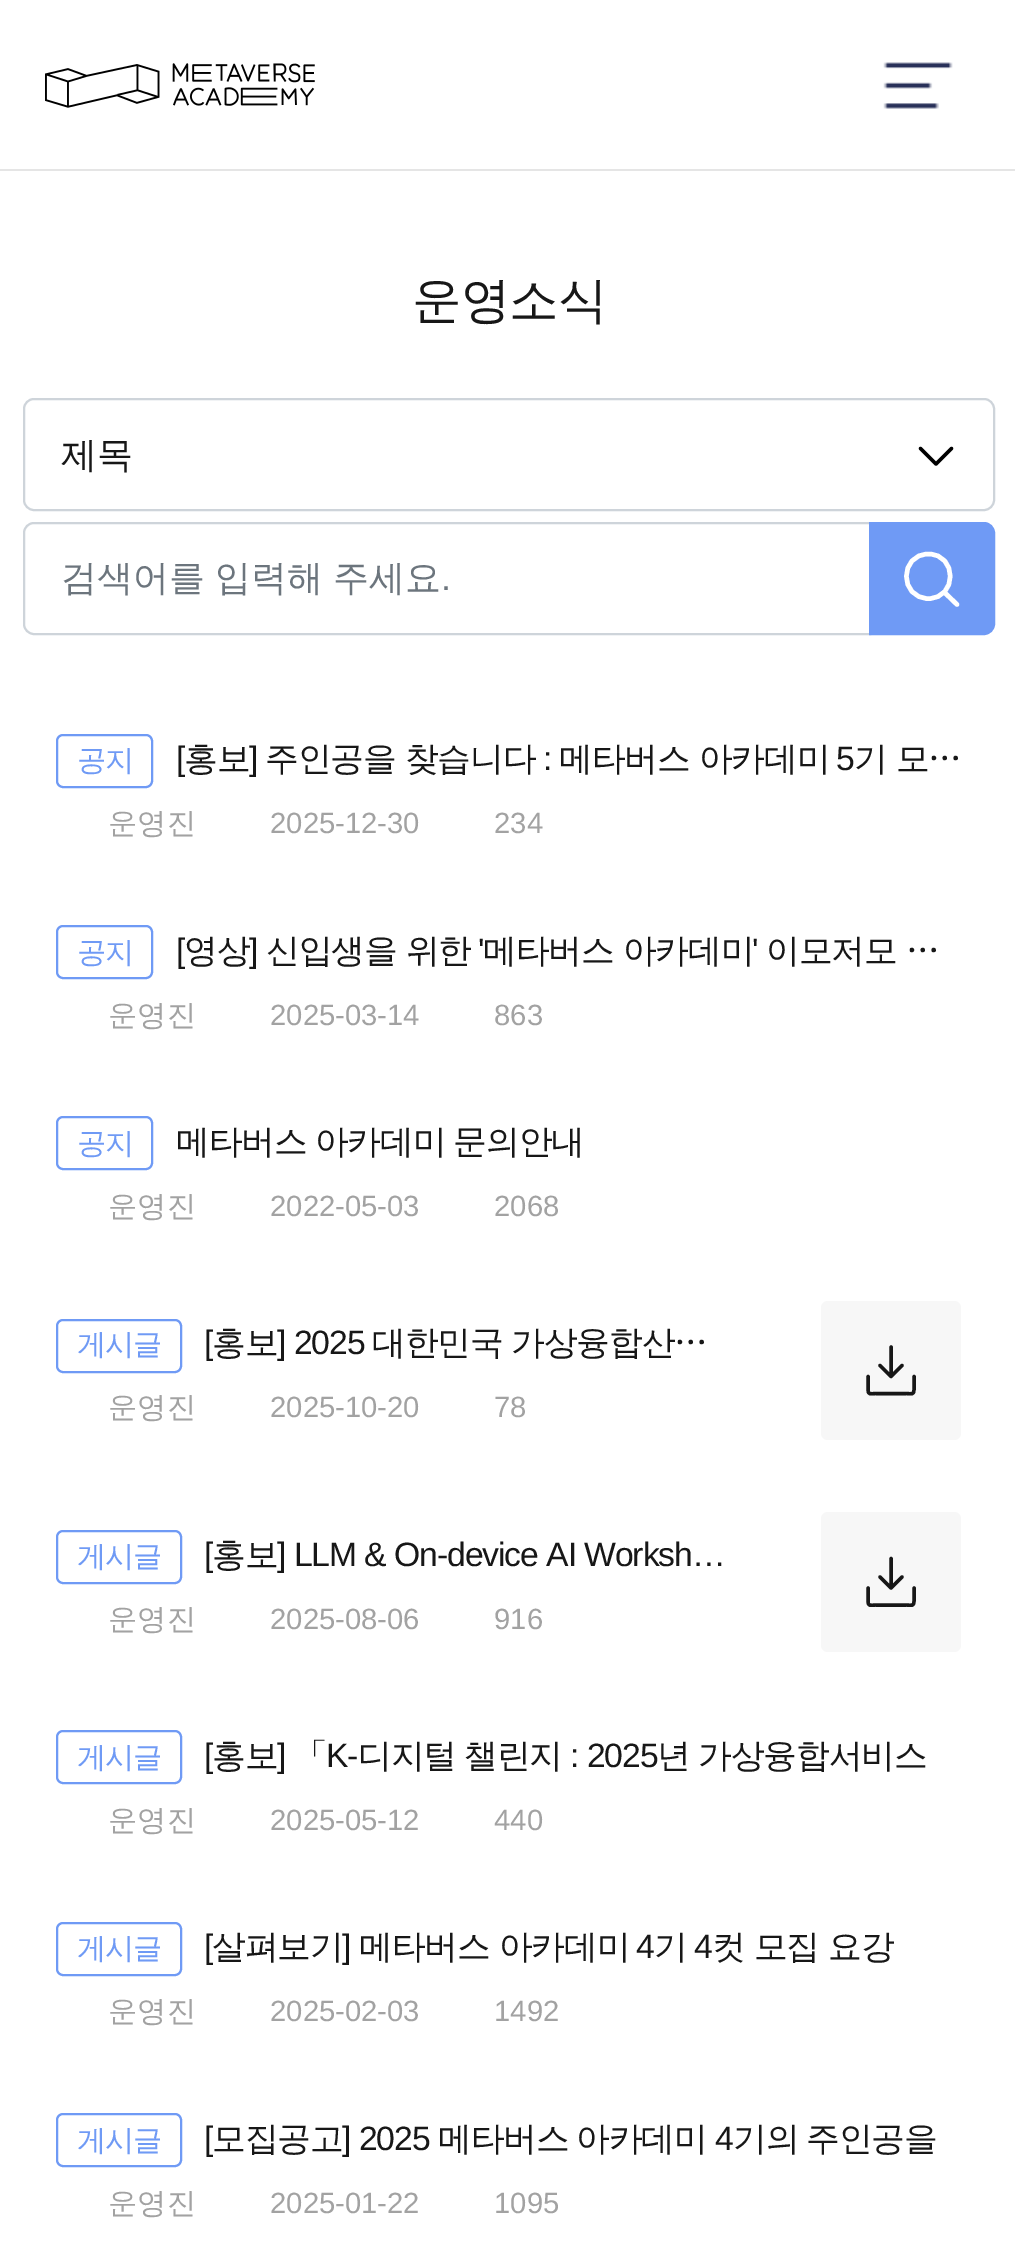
%!PS
<< /PageSize [1015 2266] >> setpagedevice
/rgb { dup -16 bitshift 255 div exch dup -8 bitshift 255 and 255 div exch 255 and 255 div setrgbcolor } def
/font { [ exch dup neg 0 0 3 -1 roll 0 0 ] selectfont } def
/text { moveto show } def
/roundrect { 5 dict begin { /r /h /w /y /x } { exch def } forall
  x r add y moveto x w add y 2 copy h add r arct x w add y h add x 1 index r arct
  x y h add x y r arct x y 2 copy exch w add exch r arct closepath end } def
/picture { 5 dict begin { /h /w /y /x /name } { exch def } forall
  gsave x y translate w h scale
  w h 8 [w 0 0 h 0 0] name (r) file false 3 colorimage grestore end } def
0 2266 translate 1 -1 scale
4 setmiterlimit
/s1 { /WenQuanYiZenHei-Medium 36 font 16#171717 rgb } def
/s2 { /LiberationSans-Regular 36 font 16#6C757D rgb } def
/s3 { /WenQuanYiZenHei-Medium 29.25 font 16#A2A2A2 rgb } def
/s4 { /LiberationSans-Regular 29.25 font 16#A2A2A2 rgb } def
16#FFFFFF rgb
0 0 1015 2266 rectfill
16#E5E5E5 rgb
0 169 1015 2 rectfill
(pic1.raw) 45 63 270 45 picture
(pic2.raw) 883 62 70 47 picture
/WenQuanYiZenHei-Medium 49.5 font
16#171717 rgb
412 317 moveto -1 0 (운영소식) ashow
16#000000 rgb
3.4 setlinewidth
1 setlinecap
1 setlinejoin
951.5 448.5 moveto 936 464 lineto 920.5 448.5 lineto stroke
16#CED4DA rgb
2 setlinewidth
0 setlinecap
0 setlinejoin
24 399 970 111 10 roundrect stroke
s1
(제목) 61 467 text
16#CED4DA rgb
34 523 moveto 870 523 lineto 870 634 lineto 34 634 lineto 28.5 634 24 629.5 24 624 curveto 24 533 lineto 24 527.5 28.5 523 34 523 curveto closepath stroke
16#6C757D rgb
61 590 moveto -1 0 32 (검색어를 입력해 주세요) widthshow
s2
(.) 441 590 text
16#6F9AF5 rgb
870 523 moveto 984 523 lineto 989.5 523 994 527.5 994 533 curveto 994 624 lineto 994 629.5 989.5 634 984 634 curveto 870 634 lineto closepath gsave fill grestore
stroke
16#FFFFFF rgb
4.5 setlinewidth
1 setlinecap
1 setlinejoin
928.5 598.5 moveto 957.5 598.5 957.5 554 928.5 554 curveto 899 554 899 598.5 928.5 598.5 curveto closepath 944 592 moveto 957 604.5 lineto stroke
16#6F9AF5 rgb
2 setlinewidth
0 setlinecap
0 setlinejoin
57 735 95 52 6 roundrect stroke
/WenQuanYiZenHei-Medium 29.25 font
77 770 moveto -1.1 0 (공지) ashow
/LiberationSans-Regular 33.75 font
16#171717 rgb
176 770 moveto -1.1 0 ([) ashow
/WenQuanYiZenHei-Medium 33.75 font
184 770 moveto -1.1 0 (홍보) ashow
/LiberationSans-Regular 33.75 font
249 770 moveto -1.1 0 (]) ashow
/WenQuanYiZenHei-Medium 33.75 font
265 770 moveto -1.1 0 (주인공을 찾습니다) ashow
/LiberationSans-Regular 33.75 font
543 770 moveto -1.1 0 (:) ashow
/WenQuanYiZenHei-Medium 33.75 font
559 770 moveto -1.1 0 (메타버스 아카데미) ashow
/LiberationSans-Regular 33.75 font
836 770 moveto -1.1 0 (5) ashow
/WenQuanYiZenHei-Medium 33.75 font
854 770 moveto -1.1 0 (기 모…) ashow
s3
(운영진) 108 833 text
s4
(2025-12-30) 270 833 text
(234) 494 833 text
16#6F9AF5 rgb
57 926 95 52 6 roundrect stroke
/WenQuanYiZenHei-Medium 29.25 font
77 962 moveto -1.1 0 (공지) ashow
/LiberationSans-Regular 33.75 font
16#171717 rgb
176 962 moveto -1.1 0 ([) ashow
/WenQuanYiZenHei-Medium 33.75 font
184 962 moveto -1.1 0 (영상) ashow
/LiberationSans-Regular 33.75 font
249 962 moveto -1.1 0 (]) ashow
/WenQuanYiZenHei-Medium 33.75 font
266 962 moveto -1.1 0 (신입생을 위한) ashow
/LiberationSans-Regular 33.75 font
478 962 moveto -1.1 0 (') ashow
/WenQuanYiZenHei-Medium 33.75 font
483 962 moveto -1.1 0 (메타버스 아카데미) ashow
/LiberationSans-Regular 33.75 font
752 962 moveto -1.1 0 (') ashow
/WenQuanYiZenHei-Medium 33.75 font
766 962 moveto -1.1 0 (이모저모 …) ashow
s3
(운영진) 108 1025 text
s4
(2025-03-14) 270 1025 text
(863) 494 1025 text
16#6F9AF5 rgb
57 1117 95 52 6 roundrect stroke
/WenQuanYiZenHei-Medium 29.25 font
77 1153 moveto -1.1 0 (공지) ashow
/WenQuanYiZenHei-Medium 33.75 font
16#171717 rgb
176 1153 moveto -1 0 32 -1.1 0 (메타버스 아카데미 문의안내) awidthshow
s3
(운영진) 108 1216 text
s4
(2022-05-03) 270 1216 text
(2068) 494 1216 text
16#6F9AF5 rgb
57 1320 124 52 6 roundrect stroke
/WenQuanYiZenHei-Medium 29.25 font
77 1354 moveto -1.1 0 (게시글) ashow
/LiberationSans-Regular 33.75 font
16#171717 rgb
204 1354 moveto -1.1 0 ([) ashow
/WenQuanYiZenHei-Medium 33.75 font
212 1354 moveto -1.1 0 (홍보) ashow
/LiberationSans-Regular 33.75 font
277 1354 moveto -1.1 0 (] 2025) ashow
/WenQuanYiZenHei-Medium 33.75 font
372 1354 moveto -1.1 0 (대한민국) ashow
511 1354 moveto -1.1 0 (가상융합산…) ashow
s3
(운영진) 108 1417 text
s4
(2025-10-20) 270 1417 text
(78) 494 1417 text
16#F7F7F7 rgb
821 1301 140 139 7 roundrect fill
16#171717 rgb
3.4 setlinewidth
1 setlinecap
1 setlinejoin
880 1365.5 moveto 891 1376.5 lineto 902 1365.5 lineto 891 1347 moveto 891 1376.5 lineto 914 1376.5 moveto 914 1389 lineto 914 1395.5 912 1393.5 905 1393.5 curveto 877 1393.5 lineto 870 1393.5 868 1395.5 868 1389 curveto 868 1376.5 lineto stroke
16#6F9AF5 rgb
2 setlinewidth
0 setlinecap
0 setlinejoin
57 1531 124 52 6 roundrect stroke
/WenQuanYiZenHei-Medium 29.25 font
77 1566 moveto -1.1 0 (게시글) ashow
/LiberationSans-Regular 33.75 font
16#171717 rgb
204 1566 moveto -1.1 0 ([) ashow
/WenQuanYiZenHei-Medium 33.75 font
212 1566 moveto -1.1 0 (홍보) ashow
/LiberationSans-Regular 33.75 font
277 1566 moveto -1.1 0 (] LLM & On-device AI Worksh…) ashow
s3
(운영진) 108 1629 text
s4
(2025-08-06) 270 1629 text
(916) 494 1629 text
16#F7F7F7 rgb
821 1512 140 140 7 roundrect fill
16#171717 rgb
3.4 setlinewidth
1 setlinecap
1 setlinejoin
880 1577 moveto 891 1588 lineto 902 1577 lineto 891 1558.5 moveto 891 1588 lineto 914 1588 moveto 914 1600.5 lineto 914 1607 912 1605 905 1605 curveto 877 1605 lineto 870 1605 868 1607 868 1600.5 curveto 868 1588 lineto stroke
16#6F9AF5 rgb
2 setlinewidth
0 setlinecap
0 setlinejoin
57 1731 124 52 6 roundrect stroke
/WenQuanYiZenHei-Medium 29.25 font
77 1767 moveto -1.1 0 (게시글) ashow
/LiberationSans-Regular 33.75 font
16#171717 rgb
204 1767 moveto -1.1 0 ([) ashow
/WenQuanYiZenHei-Medium 33.75 font
212 1767 moveto -1.1 0 (홍보) ashow
/LiberationSans-Regular 33.75 font
277 1767 moveto -1.1 0 (]) ashow
/WenQuanYiZenHei-Medium 33.75 font
294 1767 moveto -1.1 0 (「) ashow
/LiberationSans-Regular 33.75 font
326 1767 moveto -1.1 0 (K-) ashow
/WenQuanYiZenHei-Medium 33.75 font
358 1767 moveto -1.1 0 (디지털) ashow
464 1767 moveto -1.1 0 (챌린지) ashow
/LiberationSans-Regular 33.75 font
570 1767 moveto -1.1 0 (: 2025) ashow
/WenQuanYiZenHei-Medium 33.75 font
657 1767 moveto -1.1 0 (년) ashow
698 1767 moveto -1.1 0 (가상융합서비스) ashow
s3
(운영진) 108 1830 text
s4
(2025-05-12) 270 1830 text
(440) 494 1830 text
16#6F9AF5 rgb
57 1923 124 52 6 roundrect stroke
/WenQuanYiZenHei-Medium 29.25 font
77 1958 moveto -1.1 0 (게시글) ashow
/LiberationSans-Regular 33.75 font
16#171717 rgb
204 1958 moveto -1.1 0 ([) ashow
/WenQuanYiZenHei-Medium 33.75 font
212 1958 moveto -1.1 0 (살펴보기) ashow
/LiberationSans-Regular 33.75 font
342 1958 moveto -1.1 0 (]) ashow
/WenQuanYiZenHei-Medium 33.75 font
359 1958 moveto -1.1 0 (메타버스 아카데미) ashow
/LiberationSans-Regular 33.75 font
636 1958 moveto -1.1 0 (4) ashow
/WenQuanYiZenHei-Medium 33.75 font
654 1958 moveto -1.1 0 (기) ashow
/LiberationSans-Regular 33.75 font
694 1958 moveto -1.1 0 (4) ashow
/WenQuanYiZenHei-Medium 33.75 font
712 1958 moveto -1.1 0 (컷 모집 요강) ashow
s3
(운영진) 108 2021 text
s4
(2025-02-03) 270 2021 text
(1492) 494 2021 text
16#6F9AF5 rgb
57 2114 124 52 6 roundrect stroke
/WenQuanYiZenHei-Medium 29.25 font
77 2150 moveto -1.1 0 (게시글) ashow
/LiberationSans-Regular 33.75 font
16#171717 rgb
204 2150 moveto -1.1 0 ([) ashow
/WenQuanYiZenHei-Medium 33.75 font
212 2150 moveto -1.1 0 (모집공고) ashow
/LiberationSans-Regular 33.75 font
342 2150 moveto -1.1 0 (] 2025) ashow
/WenQuanYiZenHei-Medium 33.75 font
438 2150 moveto -1.1 0 (메타버스) ashow
576 2150 moveto -1.1 0 (아카데미) ashow
/LiberationSans-Regular 33.75 font
715 2150 moveto -1.1 0 (4) ashow
/WenQuanYiZenHei-Medium 33.75 font
733 2150 moveto -1.1 0 (기의) ashow
806 2150 moveto -1.1 0 (주인공을) ashow
s3
(운영진) 108 2213 text
s4
(2025-01-22) 270 2213 text
(1095) 494 2213 text
showpage
